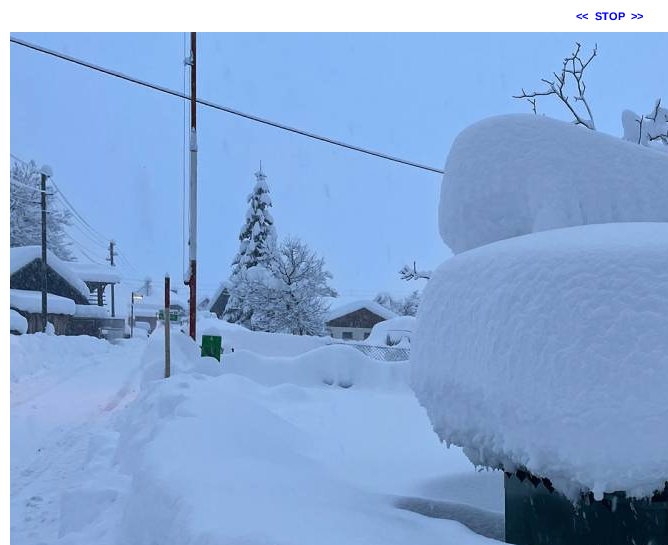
%!PS
<< /PageSize [668 545] >> setpagedevice
/rgb { dup -16 bitshift 255 div exch dup -8 bitshift 255 and 255 div exch 255 and 255 div setrgbcolor } def
/font { [ exch dup neg 0 0 3 -1 roll 0 0 ] selectfont } def
/text { moveto show } def
/picture { 5 dict begin { /h /w /y /x /name } { exch def } forall
  gsave x y translate w h scale
  w h 8 [w 0 0 h 0 0] name (r) file false 3 colorimage grestore end } def
0 545 translate 1 -1 scale
4 setmiterlimit
/s1 { /LiberationSans-Bold 11 font 16#0000FF rgb } def
16#FFFFFF rgb
0 0 668 545 rectfill
s1
(<<) 576 20 text
(STOP) 595 20 text
(>>) 631 20 text
(pic1.raw) 10 32 658 513 picture
showpage
